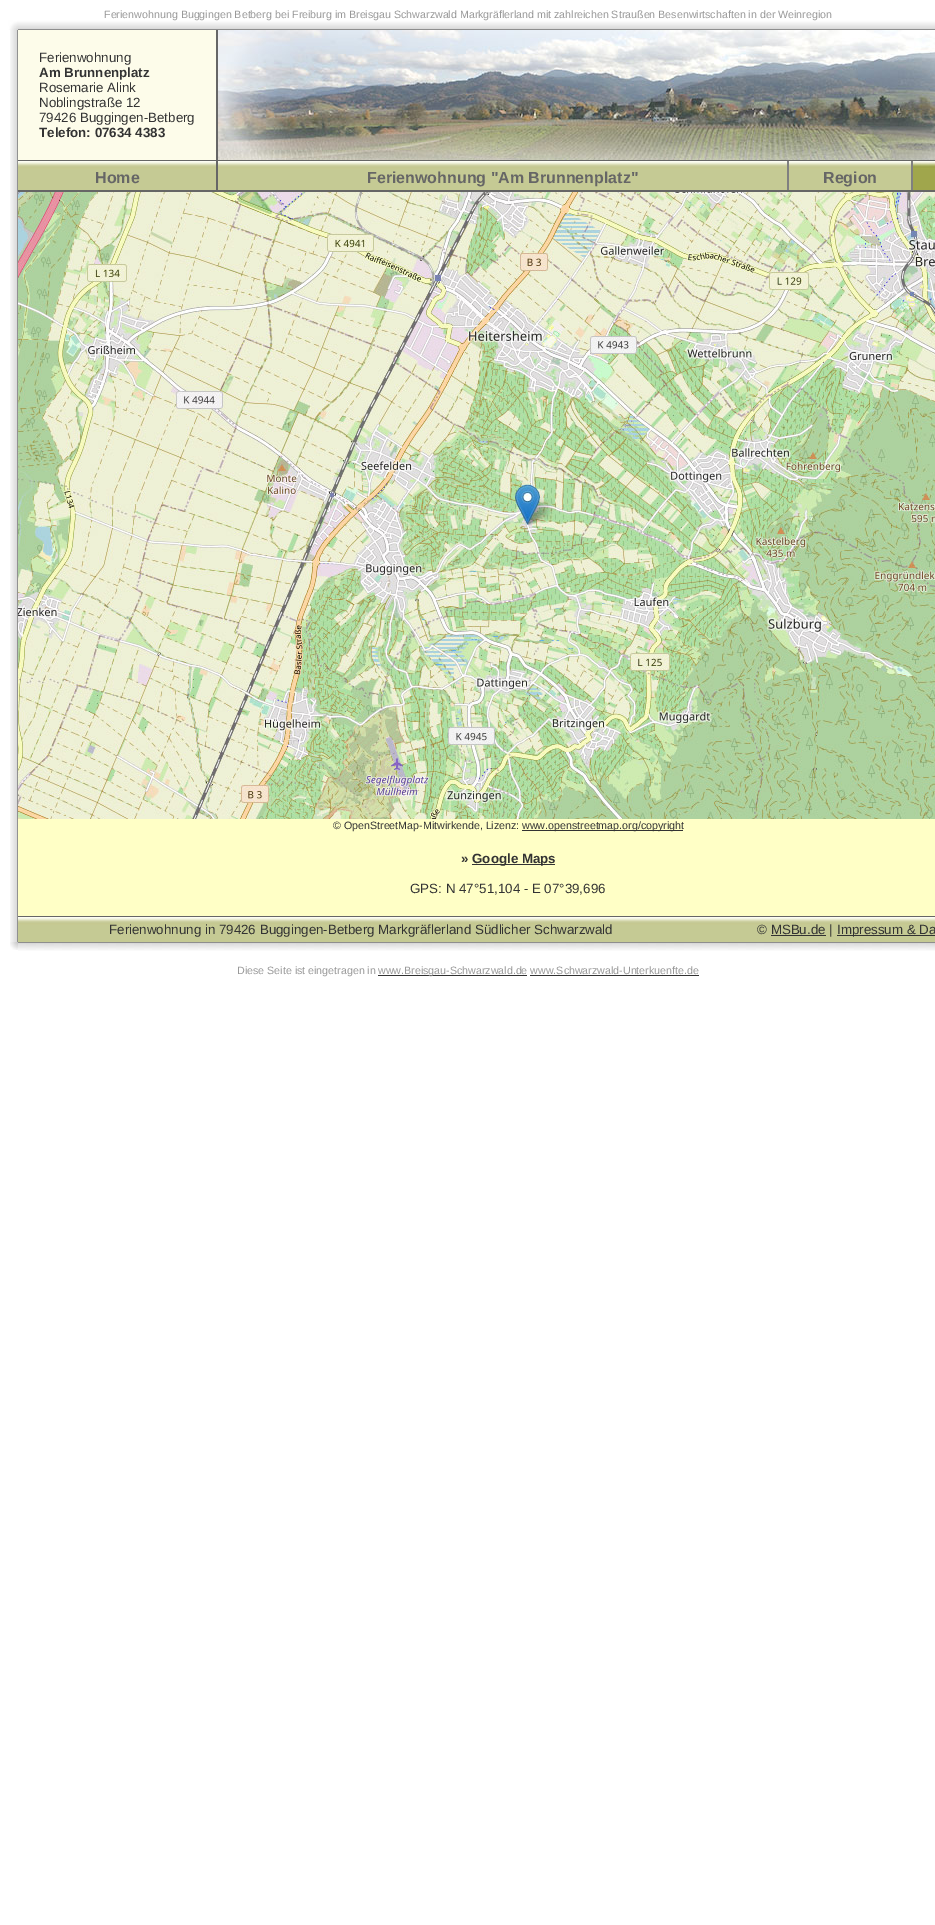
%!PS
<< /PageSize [935 1925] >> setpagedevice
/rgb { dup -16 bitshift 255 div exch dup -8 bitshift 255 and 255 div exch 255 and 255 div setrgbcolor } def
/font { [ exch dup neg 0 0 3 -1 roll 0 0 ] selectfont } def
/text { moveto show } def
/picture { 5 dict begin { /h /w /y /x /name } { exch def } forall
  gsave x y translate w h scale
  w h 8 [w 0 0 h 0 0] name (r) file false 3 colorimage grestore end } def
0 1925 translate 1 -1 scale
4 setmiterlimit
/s1 { /LiberationSans-Regular 10.67 font 16#999999 rgb } def
/s2 { /LiberationSans-Regular 13.35 font 16#333333 rgb } def
/s3 { /LiberationSans-Bold 13.35 font 16#333333 rgb } def
/s4 { /LiberationSans-Bold 16 font 16#666666 rgb } def
/s5 { /LiberationSans-Regular 10.67 font 16#333333 rgb } def
16#FFFFFF rgb
0 0 935 1925 rectfill
(pic2.raw) 18 20 917 10 picture
s1
(Ferienwohnung Buggingen Betberg bei Freiburg im Breisgau Schwarzwald Markgräflerland mit zahlreichen Straußen Besenwirtschaften in der Weinregion) 104 18 text
(pic1.raw) 8 20 10 10 picture
(pic3.raw) 10 30 8 912 picture
16#FFFFC6 rgb
18 819 917 97 rectfill
(pic4.raw) 18 30 198 130 picture
s2
(Ferienwohnung) 39 62 text
s3
(Am Brunnenplatz) 39 77 text
s2
(Rosemarie Alink) 39 92 text
(Noblingstraße 12) 39 107 text
(79426 Buggingen-Betberg) 39 122 text
s3
(Telefon: 07634 4383) 39 137 text
16#666666 rgb
216 30 2 130 rectfill
(pic5.raw) 218 30 717 130 picture
18 160 917 1 rectfill
(pic6.raw) 18 161 198 29 picture
s4
(Home) 95 183 text
216 161 2 29 rectfill
16#808080 rgb
787 161 2 29 rectfill
(pic7.raw) 218 161 569 29 picture
s4
(Ferienwohnung "Am Brunnenplatz") 367 183 text
16#808080 rgb
911 161 2 29 rectfill
(pic8.raw) 789 161 122 29 picture
s4
(Region) 823 183 text
(pic9.raw) 913 161 22 29 picture
18 190 917 2 rectfill
(pic10.raw) 18 192 917 627 picture
s5
(© OpenStreetMap-Mitwirkende, Lizenz:) 333 829 text
522 830 161 1 rectfill
(www.openstreetmap.org/copyright) 522 829 text
s3
(») 461 863 text
472 864 83 1 rectfill
(Google Maps) 472 863 text
s2
(GPS: N 47°51,104 - E 07°39,696) 410 893 text
16#666666 rgb
18 916 917 1 rectfill
(pic11.raw) 18 917 917 25 picture
s2
(Ferienwohnung in 79426 Buggingen-Betberg Markgräflerland Südlicher Schwarzwald) 109 934 text
(© MSBu.de |) 757 934 text
771 935 55 1 rectfill
837 935 98 1 rectfill
(Impressum & Da) 837 934 text
(pic12.raw) 10 942 8 8 picture
(pic13.raw) 18 942 917 9 picture
s1
(Diese Seite ist eingetragen in) 237 974 text
16#333333 rgb
378 975 149 1 rectfill
s1
(www.Breisgau-Schwarzwald.de www.Schwarzwald-Unterkuenfte.de) 378 974 text
16#333333 rgb
530 975 169 1 rectfill
showpage
